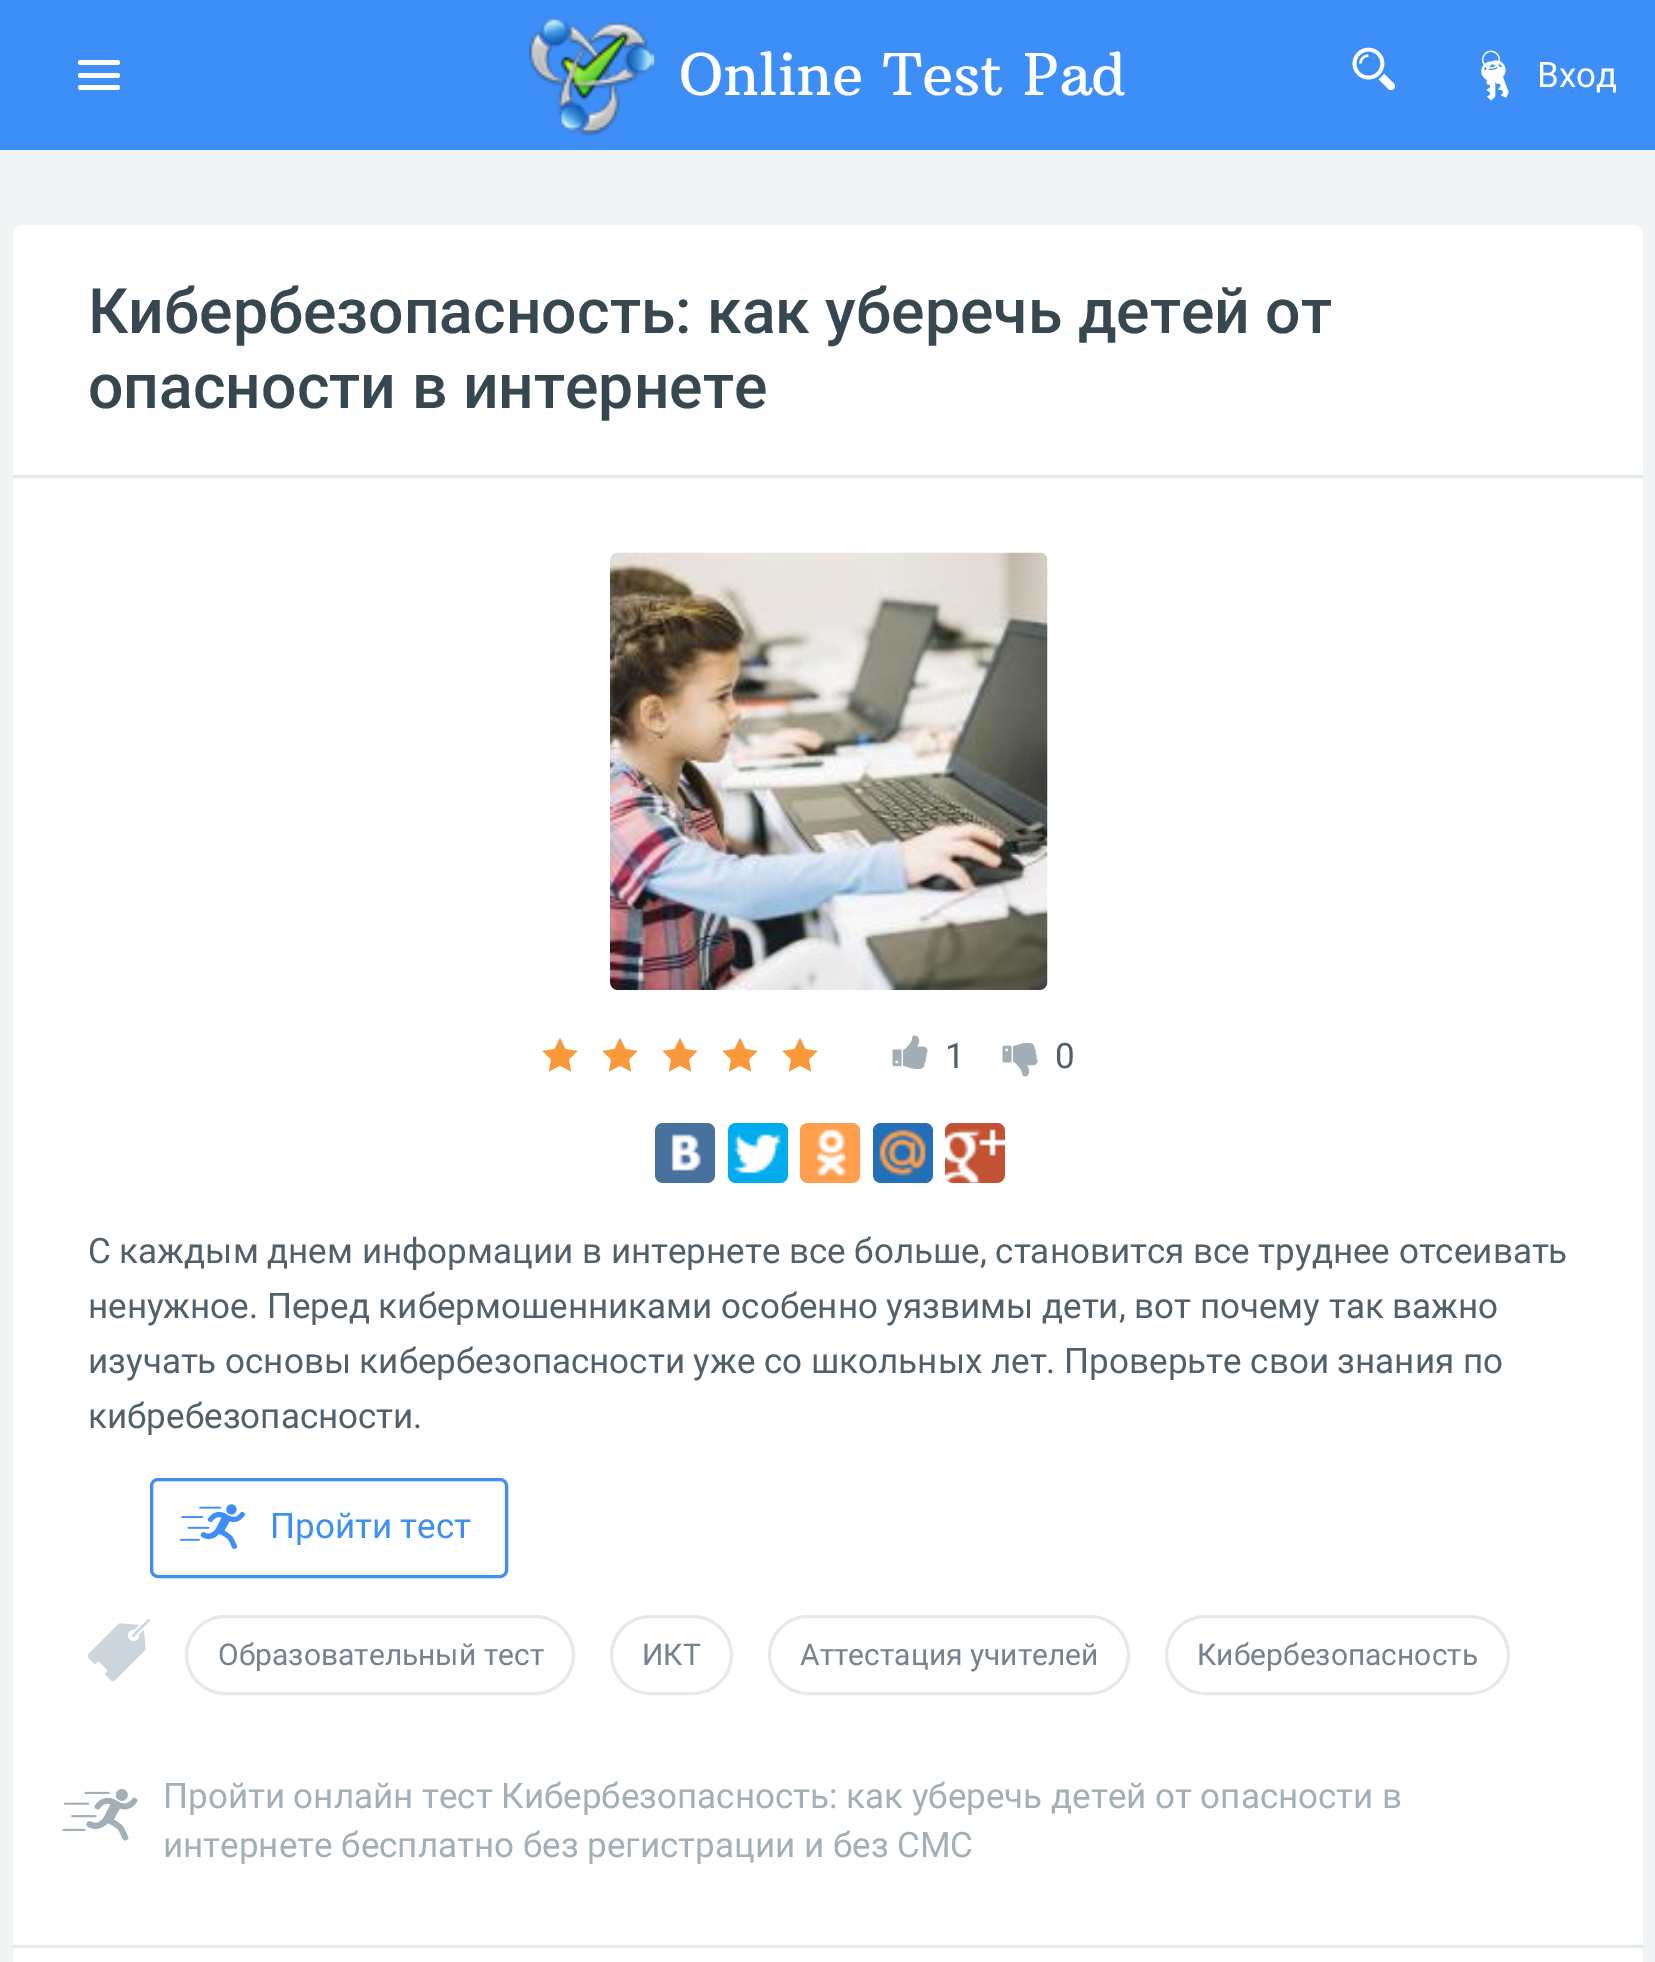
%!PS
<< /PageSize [1655 1962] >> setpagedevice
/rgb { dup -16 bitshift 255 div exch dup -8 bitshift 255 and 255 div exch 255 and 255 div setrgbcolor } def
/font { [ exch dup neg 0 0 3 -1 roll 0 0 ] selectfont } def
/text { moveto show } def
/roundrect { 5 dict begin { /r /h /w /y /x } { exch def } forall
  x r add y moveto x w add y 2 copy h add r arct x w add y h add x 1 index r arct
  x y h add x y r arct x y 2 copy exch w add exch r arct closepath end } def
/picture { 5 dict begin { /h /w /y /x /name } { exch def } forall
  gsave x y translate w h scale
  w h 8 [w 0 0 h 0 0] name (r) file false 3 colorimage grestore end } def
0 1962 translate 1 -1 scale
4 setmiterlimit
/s1 { /ArbutusSlab-Regular 57.5 font 16#FFFFFF rgb } def
/s2 { /Roboto-Regular 35 font 16#FFFFFF rgb } def
/s3 { /Roboto-Medium 62.5 font 16#37474F rgb } def
/s4 { /Roboto-Regular 35 font 16#526069 rgb } def
/s5 { /Roboto-Regular 35 font 16#3E8EF7 rgb } def
/s6 { /Roboto-Regular 30 font 16#76838F rgb } def
/s7 { /Roboto-Regular 35 font 16#A3AFB7 rgb } def
16#3E8EF7 rgb
0 0 1655 1962 rectfill
16#FFFFFF rgb
78 60 42 5 2.5 roundrect fill
78 73 42 5 2.5 roundrect fill
78 85 42 5 2.5 roundrect fill
(pic1.raw) 529 16 126 120 picture
s1
(Online Test Pad) 679 95 text
(pic2.raw) 1352 47 43 44 picture
(pic3.raw) 1481 50 28 51 picture
s2
(Вход) 1537 87 text
16#F1F4F5 rgb
0 150 1655 1812 rectfill
16#FFFFFF rgb
13 225 1630 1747 10 roundrect fill
16#E4EAEC rgb
13 475 1630 3 rectfill
s3
(Кибербезопасность: как уберечь детей от) 88 333 text
(опасности в интернете) 88 408 text
(pic4.raw) 610 552 438 438 picture
16#FA983C rgb
577.5 1051 moveto 565.5 1049 lineto 560 1038 lineto 554.5 1049 lineto 542.5 1051 lineto 551 1059.5 lineto 549 1071.5 lineto 560 1065.5 lineto 571 1071.5 lineto 569 1059.5 lineto closepath fill
637.5 1051 moveto 625.5 1049 lineto 620 1038 lineto 614.5 1049 lineto 602.5 1051 lineto 611 1059.5 lineto 609 1071.5 lineto 620 1065.5 lineto 631 1071.5 lineto 629 1059.5 lineto closepath fill
697.5 1051 moveto 685.5 1049 lineto 680 1038 lineto 674.5 1049 lineto 662.5 1051 lineto 671 1059.5 lineto 669 1071.5 lineto 680 1065.5 lineto 691 1071.5 lineto 689 1059.5 lineto closepath fill
757.5 1051 moveto 745.5 1049 lineto 740 1038 lineto 734.5 1049 lineto 722.5 1051 lineto 731 1059.5 lineto 729 1071.5 lineto 740 1065.5 lineto 751 1071.5 lineto 749 1059.5 lineto closepath fill
817.5 1051 moveto 805.5 1049 lineto 800 1038 lineto 794.5 1049 lineto 782.5 1051 lineto 791 1059.5 lineto 789 1071.5 lineto 800 1065.5 lineto 811 1071.5 lineto 809 1059.5 lineto closepath fill
(pic5.raw) 892 1035 36 34 picture
s4
(1) 945 1068 text
(pic6.raw) 1002 1042 36 35 picture
(0) 1055 1068 text
16#48729E rgb
655 1123 60 60 8 roundrect fill
(pic7.raw) 671 1134 30 37 picture
16#00ACED rgb
728 1123 60 60 8 roundrect fill
(pic8.raw) 734 1134 47 40 picture
16#FF9F4D rgb
800 1123 60 60 8 roundrect fill
(pic9.raw) 816 1129 30 47 picture
16#226EB7 rgb
873 1123 60 60 8 roundrect fill
(pic10.raw) 879 1129 47 47 picture
16#C25234 rgb
945 1123 60 60 8 roundrect fill
(pic11.raw) 945 1129 60 54 picture
s4
(С каждым днем информации в интернете все больше, становится все труднее отсеивать) 88 1263 text
(ненужное. Перед кибермошенниками особенно уязвимы дети, вот почему так важно) 88 1318 text
(изучать основы кибербезопасности уже со школьных лет. Проверьте свои знания по) 88 1373 text
(кибребезопасности.) 88 1428 text
16#3E8EF7 rgb
3 setlinewidth
151.5 1479.5 355 97 6.5 roundrect stroke
(pic12.raw) 180 1504 66 45 picture
(Пройти тест) 270 1538 text
(pic13.raw) 87 1619 63 63 picture
16#E4EAEC rgb
186.5 1616.5 387 77 38.5 roundrect stroke
s6
(Образовательный тест) 218 1665 text
16#E4EAEC rgb
611.5 1616.5 120 77 38.5 roundrect stroke
s6
(ИКТ) 642 1665 text
16#E4EAEC rgb
769.5 1616.5 359 77 38.5 roundrect stroke
s6
(Аттестация учителей) 800 1665 text
16#E4EAEC rgb
1166.5 1616.5 342 77 38.5 roundrect stroke
s6
(Кибербезопасность) 1197 1665 text
(pic14.raw) 62 1788 76 53 picture
s7
(Пройти онлайн тест Кибербезопасность: как уберечь детей от опасности в) 163 1808 text
(интернете бесплатно без регистрации и без СМС) 163 1857 text
16#E4EAEC rgb
13 1945 1630 3 rectfill
showpage
